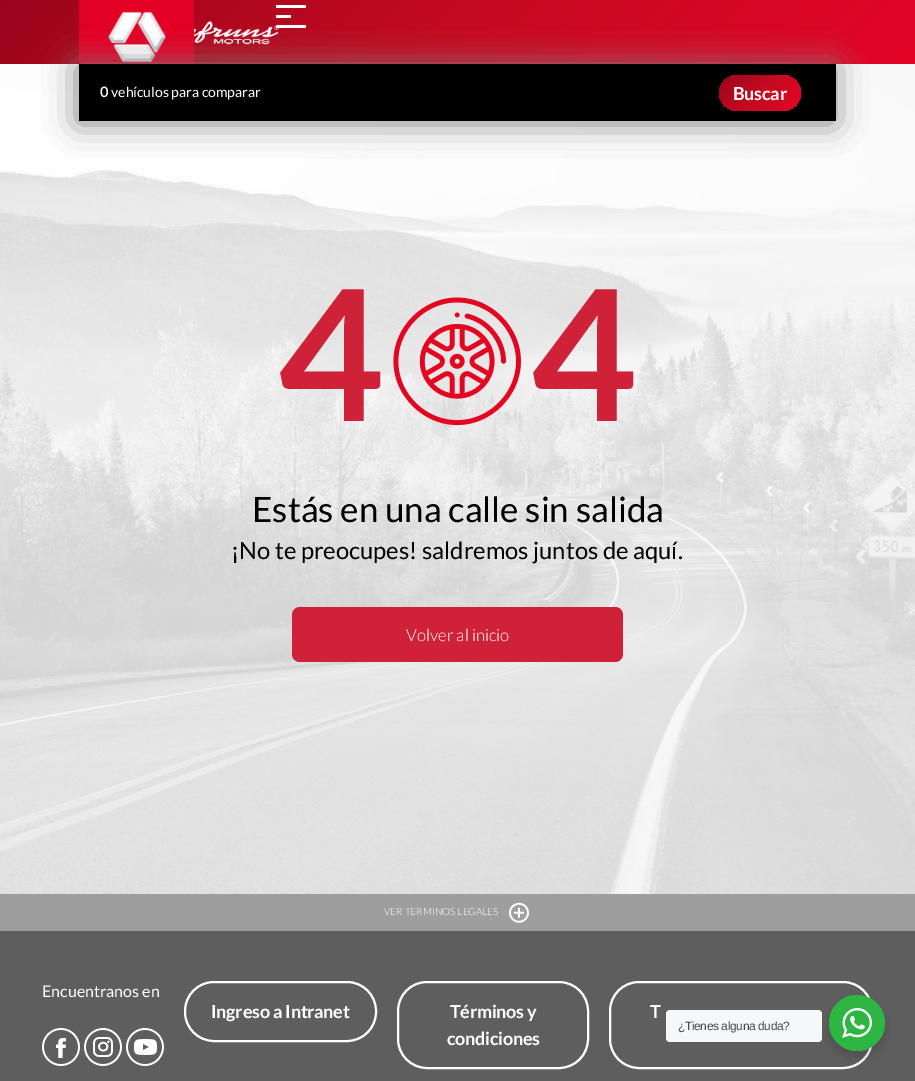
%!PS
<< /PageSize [915 1081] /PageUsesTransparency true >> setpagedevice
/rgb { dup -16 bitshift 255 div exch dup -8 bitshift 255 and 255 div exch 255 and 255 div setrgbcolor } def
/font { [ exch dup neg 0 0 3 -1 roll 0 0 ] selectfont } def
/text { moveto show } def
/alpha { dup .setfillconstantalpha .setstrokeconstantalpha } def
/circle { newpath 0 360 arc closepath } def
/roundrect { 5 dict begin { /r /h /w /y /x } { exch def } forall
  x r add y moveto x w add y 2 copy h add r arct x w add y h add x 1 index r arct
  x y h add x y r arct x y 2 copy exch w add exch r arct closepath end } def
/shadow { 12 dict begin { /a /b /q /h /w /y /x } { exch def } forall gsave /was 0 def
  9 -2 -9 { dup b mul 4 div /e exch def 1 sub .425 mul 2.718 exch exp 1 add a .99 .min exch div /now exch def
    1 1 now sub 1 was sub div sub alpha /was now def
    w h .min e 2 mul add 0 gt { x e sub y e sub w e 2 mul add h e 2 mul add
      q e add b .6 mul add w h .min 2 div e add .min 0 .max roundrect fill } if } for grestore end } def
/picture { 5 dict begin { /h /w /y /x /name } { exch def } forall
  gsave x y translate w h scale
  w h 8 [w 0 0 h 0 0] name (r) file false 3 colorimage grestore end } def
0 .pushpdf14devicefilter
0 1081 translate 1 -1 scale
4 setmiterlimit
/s1 { /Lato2-Bold 14 font 16#FFFFFF rgb } def
/s2 { /Lato-Regular 14 font 16#FFFFFF rgb } def
/s3 { /Lato-Bold 182 font 16#CF2137 rgb } def
/s4 { /Lato-Regular 35 font 16#000000 rgb } def
/s5 { /Lato-Regular 23.75 font 16#000000 rgb } def
/s6 { /Lato-Light 16.75 font 16#FFFFFF rgb } def
/s7 { /Lato-Light 10 font 16#FFFFFF rgb } def
/s8 { /Lato-Regular 16 font 16#FFFFFF rgb } def
16#FFFFFF rgb
0 0 915 1081 rectfill
gsave 0 0 moveto 915 0 lineto 915 64 lineto 0 64 lineto closepath clip newpath
<< /ShadingType 2 /ColorSpace /DeviceRGB /Coords [719 275 196 -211] /Extend [true true] /Function << /FunctionType 3 /Domain [0 1] /Functions [<< /FunctionType 2 /Domain [0 1] /C0 [0.89 0.02 0.153] /C1 [0.769 0.039 0.125] /N 1 >> << /FunctionType 2 /Domain [0 1] /C0 [0.769 0.039 0.125] /C1 [0.608 0.02 0.11] /N 1 >>] /Bounds [0.51] /Encode [0 1 0 1] >> >> shfill grestore
(pic1.raw) 79 0 115 64 picture
276 5 30 3 rectfill
276 15 15 3 rectfill
(pic2.raw) 194 21 85 24 picture
276 25 30 3 rectfill
(pic3.raw) 0 64 915 830 picture
16#808080 rgb
77 66 757 57 0 16 1 shadow
16#000000 rgb
79 64 757 57 rectfill
s1
(0) 100 97 text
s2
(vehículos para comparar) 111 97 text
gsave 719 75 82 36 18 roundrect clip newpath
<< /ShadingType 2 /ColorSpace /DeviceRGB /Coords [791 122 729 64] /Extend [true true] /Function << /FunctionType 3 /Domain [0 1] /Functions [<< /FunctionType 2 /Domain [0 1] /C0 [0.89 0.02 0.153] /C1 [0.769 0.039 0.125] /N 1 >> << /FunctionType 2 /Domain [0 1] /C0 [0.769 0.039 0.125] /C1 [0.608 0.02 0.11] /N 1 >>] /Bounds [0.51] /Encode [0 1 0 1] >> >> shfill grestore
/Lato-Bold 18 font
733 100 moveto -0.25 0 (Buscar) ashow
s3
(4) 278 421 text
(pic4.raw) 393 297 128 129 picture
(4) 531 421 text
s4
(Estás en una calle sin salida) 252 522 text
s5
(¡No te preocupes! saldremos juntos de aquí.) 231 559 text
16#CF2137 rgb
292 607 331 55 8 roundrect fill
s6
(Volver al inicio) 406 641 text
16#9E9E9E rgb
0 894 915 37 rectfill
s7
(VER TERMINOS LEGALES) 384 915 text
(pic5.raw) 509 902 20 21 picture
16#000000 rgb
-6 933 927 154 0 2 0.24 shadow
16#5E5E5E rgb
0 931 915 150 rectfill
s8
(Encuentranos en) 42 997 text
(pic6.raw) 42 1028 38 38 picture
(pic7.raw) 84 1028 38 38 picture
(pic8.raw) 126 1028 38 38 picture
2 setlinewidth
185 982 191 59 29 roundrect stroke
/Lato-Bold 18 font
211 1018 moveto -0.25 0 (Ingreso a Intranet) ashow
398 982 190 86 29 roundrect stroke
450 1018 moveto -0.25 0 (Términos y) ashow
447 1045 moveto -0.25 0 (condiciones) ashow
610 982 262 86 29 roundrect stroke
650 1018 moveto -0.25 0 (T) ashow
16#000000 rgb
827 999 60 60 30 4 0.14 shadow
16#F5F7F9 rgb
666 1010 156 32 4 roundrect fill
/LiberationSans-Regular 12 font
16#43474E rgb
678 1030 moveto -0.4 0 (¿Tienes alguna duda?) ashow
16#2DB742 rgb
857 1023 28 circle fill
(pic9.raw) 842 1008 30 30 picture
.poppdf14devicefilter showpage
